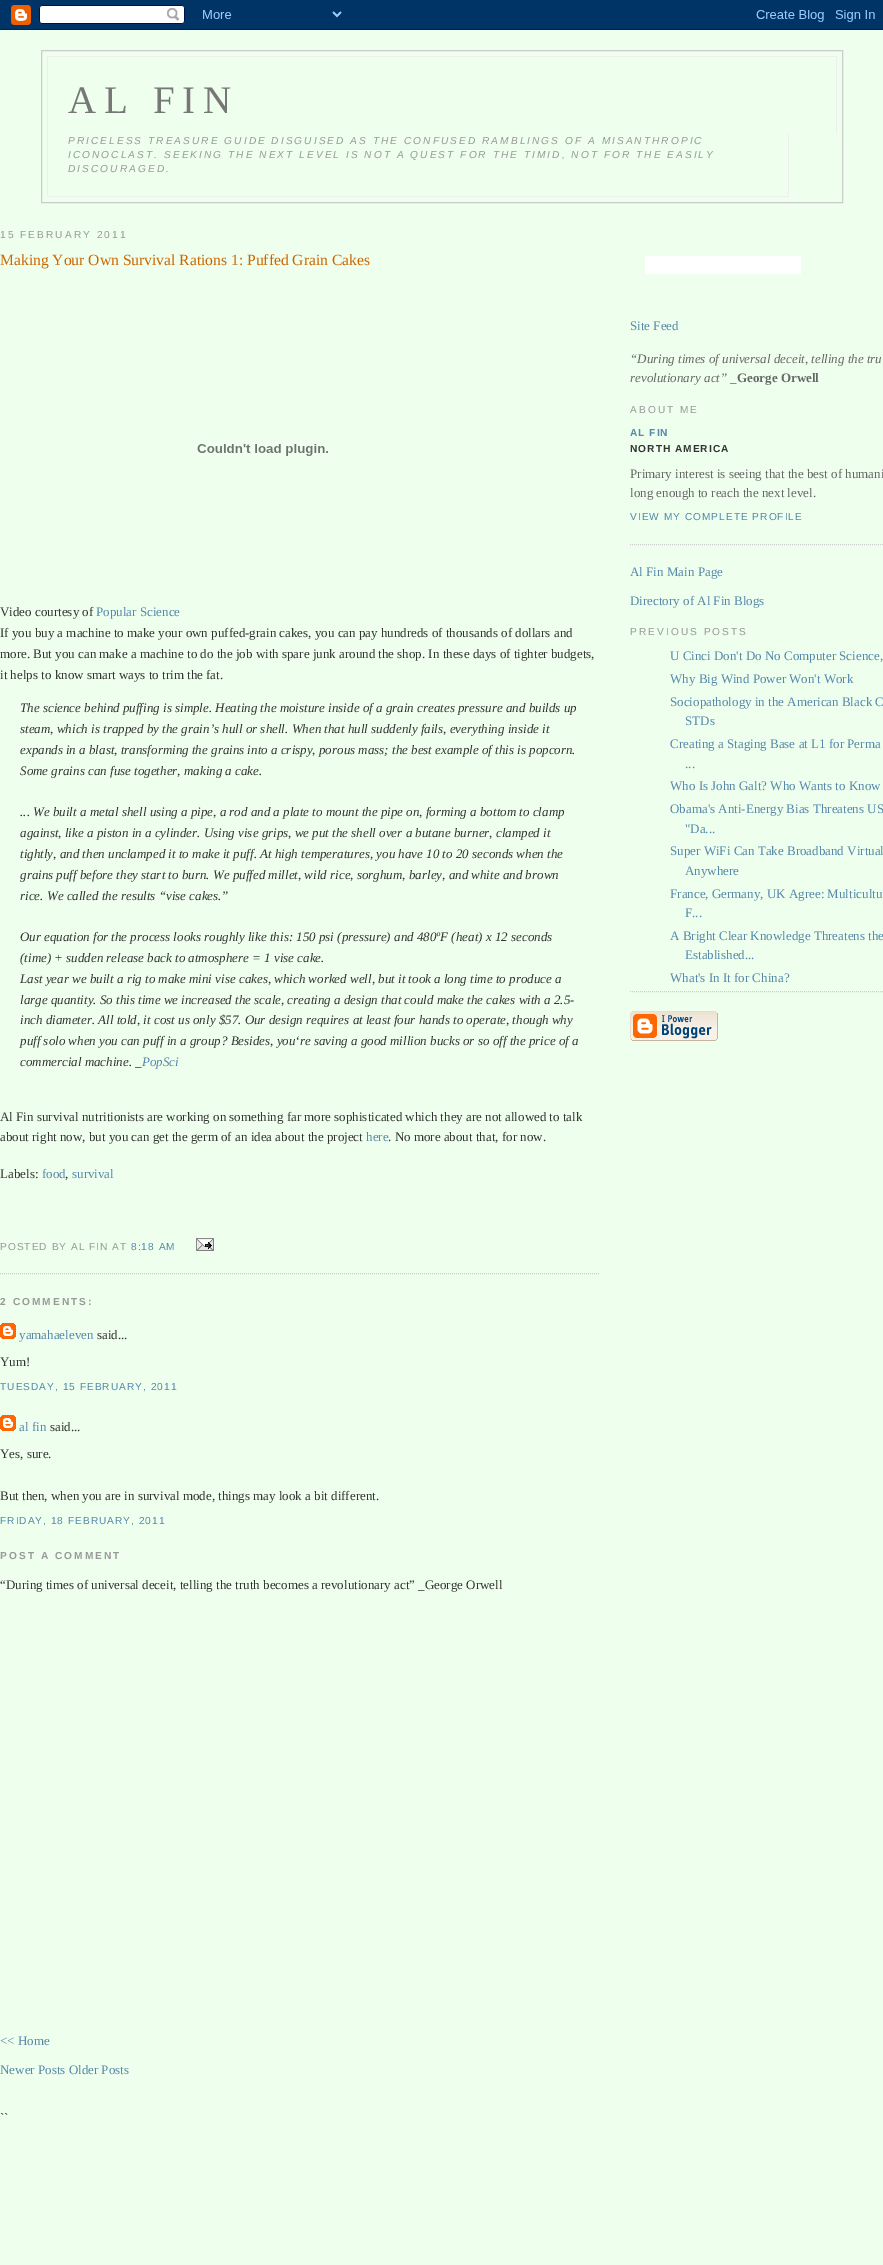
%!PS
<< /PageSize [883 2265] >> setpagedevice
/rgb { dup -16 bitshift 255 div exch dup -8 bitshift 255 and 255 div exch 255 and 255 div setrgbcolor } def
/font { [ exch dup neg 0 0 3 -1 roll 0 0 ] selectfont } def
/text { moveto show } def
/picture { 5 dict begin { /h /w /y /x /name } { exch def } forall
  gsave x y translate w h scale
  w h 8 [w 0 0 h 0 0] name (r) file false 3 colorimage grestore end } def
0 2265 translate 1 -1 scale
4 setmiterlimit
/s1 { /LiberationSerif-Regular 15.6 font 16#CC6600 rgb } def
/s2 { /LiberationSerif-Regular 13 font 16#333333 rgb } def
/s3 { /LiberationSerif-Regular 13 font 16#5588AA rgb } def
/s4 { /LiberationSerif-Italic 13 font 16#333333 rgb } def
/s5 { /LiberationSerif-Italic 13 font 16#5588AA rgb } def
/s6 { /LiberationSerif-Italic 13 font 16#666666 rgb } def
/s7 { /LiberationSerif-Regular 13 font 16#666666 rgb } def
/s8 { /LiberationSerif-Bold 13 font 16#666666 rgb } def
16#EEFFEE rgb
0 0 883 2265 rectfill
(pic1.raw) 0 0 883 30 picture
16#CCCCCC rgb
41.5 50.5 801 152 rectstroke
16#EEEEEE rgb
47 56 790 1 rectfill
836 56 1 78 rectfill
47 56 1 78 rectfill
/LiberationSerif-Regular 39 font
16#777777 rgb
68 113 moveto 7.75 0 (AL FIN) ashow
16#EEEEEE rgb
788 134 1 63 rectfill
47 196 742 1 rectfill
47 134 1 63 rectfill
/LiberationSans-Italic 10.15 font
16#999999 rgb
68 144 moveto 2.03 0 (PRICELESS TREASURE GUIDE DISGUISED AS THE CONFUSED RAMBLINGS OF A MISANTHROPIC) ashow
68 158 moveto 2.03 0 (ICONOCLAST. SEEKING THE NEXT LEVEL IS NOT A QUEST FOR THE TIMID, NOT FOR THE EASILY) ashow
68 172 moveto 2.03 0 (DISCOURAGED.) ashow
/LiberationSans-Regular 10.15 font
0 238 moveto 2.03 0 (15 FEBRUARY 2011) ashow
16#CCCCCC rgb
[1 1] 0 setdash
0 1273.5 moveto 600 1273.5 lineto stroke
s1
(Making Your Own Survival Rations 1: Puffed Grain Cakes) 0 265 text
(pic2.raw) 197 444 131 12 picture
s2
(Video courtesy of) 0 616 text
s3
(Popular Science) 96 616 text
s2
(If you buy a machine to make your own puffed-grain cakes, you can pay hundreds of thousands of dollars and) 0 637 text
(more. But you can make a machine to do the job with spare junk around the shop. In these days of tighter budgets,) 0 658 text
(it helps to know smart ways to trim the fat.) 0 679 text
s4
(The science behind puffing is simple. Heating the moisture inside of a grain creates pressure and builds up) 20 712 text
(steam, which is trapped by the grain’s hull or shell. When that hull suddenly fails, everything inside it) 20 733 text
(expands in a blast, transforming the grains into a crispy, porous mass; the best example of this is popcorn.) 20 754 text
(Some grains can fuse together, making a cake.) 20 775 text
(... We built a metal shell using a pipe, a rod and a plate to mount the pipe on, forming a bottom to clamp) 20 816 text
(against, like a piston in a cylinder. Using vise grips, we put the shell over a butane burner, clamped it) 20 837 text
(tightly, and then unclamped it to make it puff. At high temperatures, you have 10 to 20 seconds when the) 20 858 text
(grains puff before they start to burn. We puffed millet, wild rice, sorghum, barley, and white and brown) 20 879 text
(rice. We called the results “vise cakes.”) 20 900 text
(Our equation for the process looks roughly like this: 150 psi \(pressure\) and 480ºF \(heat\) x 12 seconds) 20 941 text
(\(time\) + sudden release back to atmosphere = 1 vise cake.) 20 962 text
(Last year we built a rig to make mini vise cakes, which worked well, but it took a long time to produce a) 20 983 text
(large quantity. So this time we increased the scale, creating a design that could make the cakes with a 2.5-) 20 1004 text
(inch diameter. All told, it cost us only $57. Our design requires at least four hands to operate, though why) 20 1024 text
(puff solo when you can puff in a group? Besides, you‘re saving a good million bucks or so off the price of a) 20 1045 text
(commercial machine. _) 20 1066 text
s5
(PopSci) 142 1066 text
s2
(Al Fin survival nutritionists are working on something far more sophisticated which they are not allowed to talk) 0 1121 text
(about right now, but you can get the germ of an idea about the project) 0 1141 text
s3
(here) 366 1141 text
s2
(. No more about that, for now.) 388 1141 text
(Labels:) 0 1178 text
s3
(food) 42 1178 text
s2
(,) 65 1178 text
s3
(survival) 72 1178 text
/LiberationSans-Regular 10.15 font
16#999999 rgb
0 1250 moveto 1 0 (POSTED BY AL FIN AT) ashow
16#5588AA rgb
131 1250 moveto 1 0 (8:18 AM) ashow
(pic3.raw) 196 1238 18 13 picture
/LiberationSans-Bold 10.15 font
16#999999 rgb
0 1305 moveto 2.03 0 (2 COMMENTS:) ashow
(pic4.raw) 0 1323 16 16 picture
s3
(yamahaeleven) 19 1339 text
s2
(said...) 97 1339 text
(Yum!) 0 1366 text
/LiberationSans-Regular 10.15 font
16#5588AA rgb
0 1390 moveto 1 0 (TUESDAY, 15 FEBRUARY, 2011) ashow
(pic4.raw) 0 1415 16 16 picture
s3
(al fin) 19 1431 text
s2
(said...) 50 1431 text
(Yes, sure.) 0 1458 text
(But then, when you are in survival mode, things may look a bit different.) 0 1500 text
/LiberationSans-Regular 10.15 font
16#5588AA rgb
0 1524 moveto 1 0 (FRIDAY, 18 FEBRUARY, 2011) ashow
/LiberationSans-Bold 10.15 font
16#999999 rgb
0 1559 moveto 2.03 0 (POST A COMMENT) ashow
s2
(“During times of universal deceit, telling the truth becomes a revolutionary act” _George Orwell) 0 1589 text
s3
(<< Home) 0 2045 text
(Newer Posts Older Posts) 0 2074 text
16#FFFFFF rgb
645 256 156 18 rectfill
s3
(Site Feed) 630 330 text
s6
(“During times of universal deceit, telling the tru) 630 363 text
(revolutionary act”) 630 382 text
s7
(_) 730 382 text
s8
(George Orwell) 737 382 text
16#CCCCCC rgb
630 544.5 moveto 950 544.5 lineto stroke
/LiberationSans-Regular 10.15 font
16#999999 rgb
630 413 moveto 2.03 0 (ABOUT ME) ashow
/LiberationSans-Bold 10.15 font
16#5588AA rgb
630 436 moveto 1 0 (AL FIN) ashow
16#333333 rgb
630 452 moveto 1 0 (NORTH AMERICA) ashow
s7
(Primary interest is seeing that the best of humani) 630 478 text
(long enough to reach the next level.) 630 497 text
/LiberationSans-Regular 10.15 font
16#5588AA rgb
630 520 moveto 1 0 (VIEW MY COMPLETE PROFILE) ashow
s3
(Al Fin Main Page) 630 576 text
(Directory of Al Fin Blogs) 630 605 text
/LiberationSans-Regular 10.15 font
16#999999 rgb
630 635 moveto 2.03 0 (PREVIOUS POSTS) ashow
16#CCCCCC rgb
630 991.5 moveto 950 991.5 lineto stroke
s3
(U Cinci Don't Do No Computer Science,) 670 660 text
(Why Big Wind Power Won't Work) 670 683 text
(Sociopathology in the American Black C) 670 706 text
(STDs) 685 725 text
(Creating a Staging Base at L1 for Perma) 670 748 text
(...) 685 768 text
(Who Is John Galt? Who Wants to Know) 670 790 text
(Obama's Anti-Energy Bias Threatens US) 670 813 text
("Da...) 685 833 text
(Super WiFi Can Take Broadband Virtual) 670 855 text
(Anywhere) 685 875 text
(France, Germany, UK Agree: Multicultu) 670 898 text
(F...) 685 917 text
(A Bright Clear Knowledge Threatens the) 670 940 text
(Established...) 685 959 text
(What's In It for China?) 670 982 text
(pic5.raw) 630 1011 88 30 picture
s2
(``) 0 2122 text
showpage
